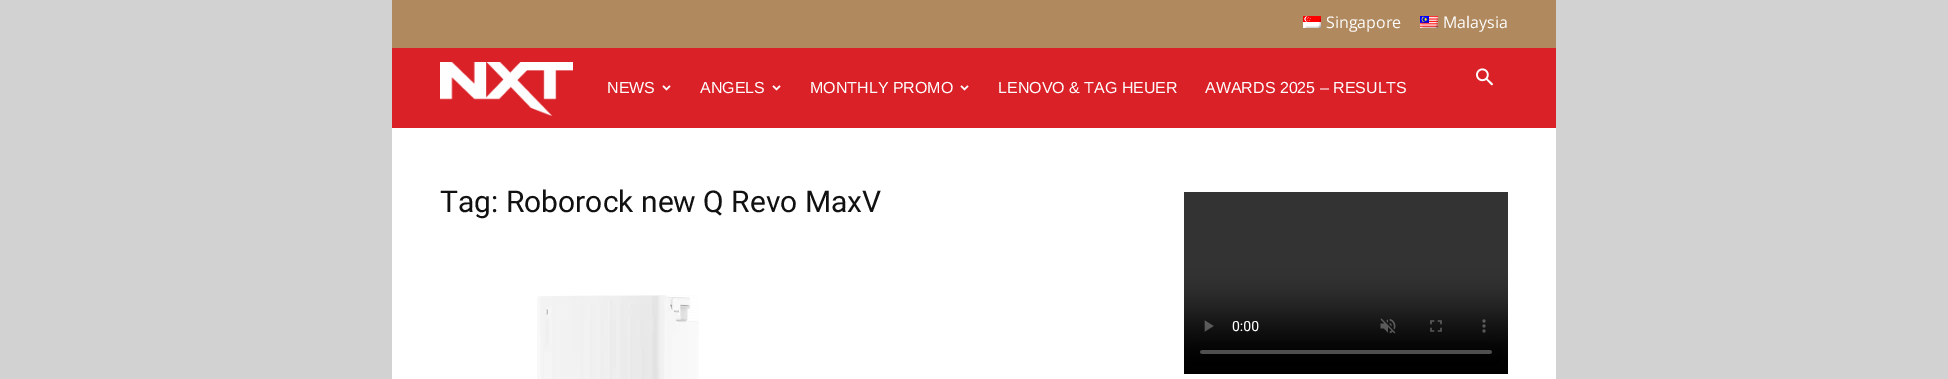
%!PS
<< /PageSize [1948 379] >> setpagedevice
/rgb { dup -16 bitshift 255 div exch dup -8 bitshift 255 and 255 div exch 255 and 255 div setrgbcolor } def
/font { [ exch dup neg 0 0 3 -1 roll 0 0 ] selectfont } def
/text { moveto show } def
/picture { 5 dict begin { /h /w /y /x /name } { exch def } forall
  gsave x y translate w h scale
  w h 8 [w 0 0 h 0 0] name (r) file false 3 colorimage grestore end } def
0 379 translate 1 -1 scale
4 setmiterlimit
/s1 { /OpenSans-Regular 16 font 16#FFFFFF rgb } def
/s2 { /LiberationSans-Regular 16 font 16#FFFFFF rgb } def
/s3 { /Roboto-Regular 30 font 16#111111 rgb } def
16#D2D2D2 rgb
0 0 1948 379 rectfill
16#B0895E rgb
392 0 1164 48 rectfill
(pic1.raw) 1303 16 18 12 picture
s1
(Singapore) 1326 28 text
(pic2.raw) 1420 16 18 12 picture
(Malaysia) 1443 28 text
16#DA2128 rgb
392 48 1164 80 rectfill
(pic3.raw) 1476 68 17 18 picture
(pic4.raw) 440 62 133 54 picture
s2
(NEWS) 607 93 text
(pic5.raw) 662 85 9 6 picture
(ANGELS) 700 93 text
(pic5.raw) 772 85 9 6 picture
(MONTHLY PROMO) 810 93 text
(pic5.raw) 960 85 9 6 picture
(LENOVO & TAG HEUER) 998 93 text
(AWARDS 2025 – RESULTS) 1205 93 text
392 128 1164 251 rectfill
s3
(Tag: Roborock new Q Revo MaxV) 440 212 text
(pic6.raw) 537 295 162 84 picture
(pic7.raw) 1184 192 324 182 picture
showpage
